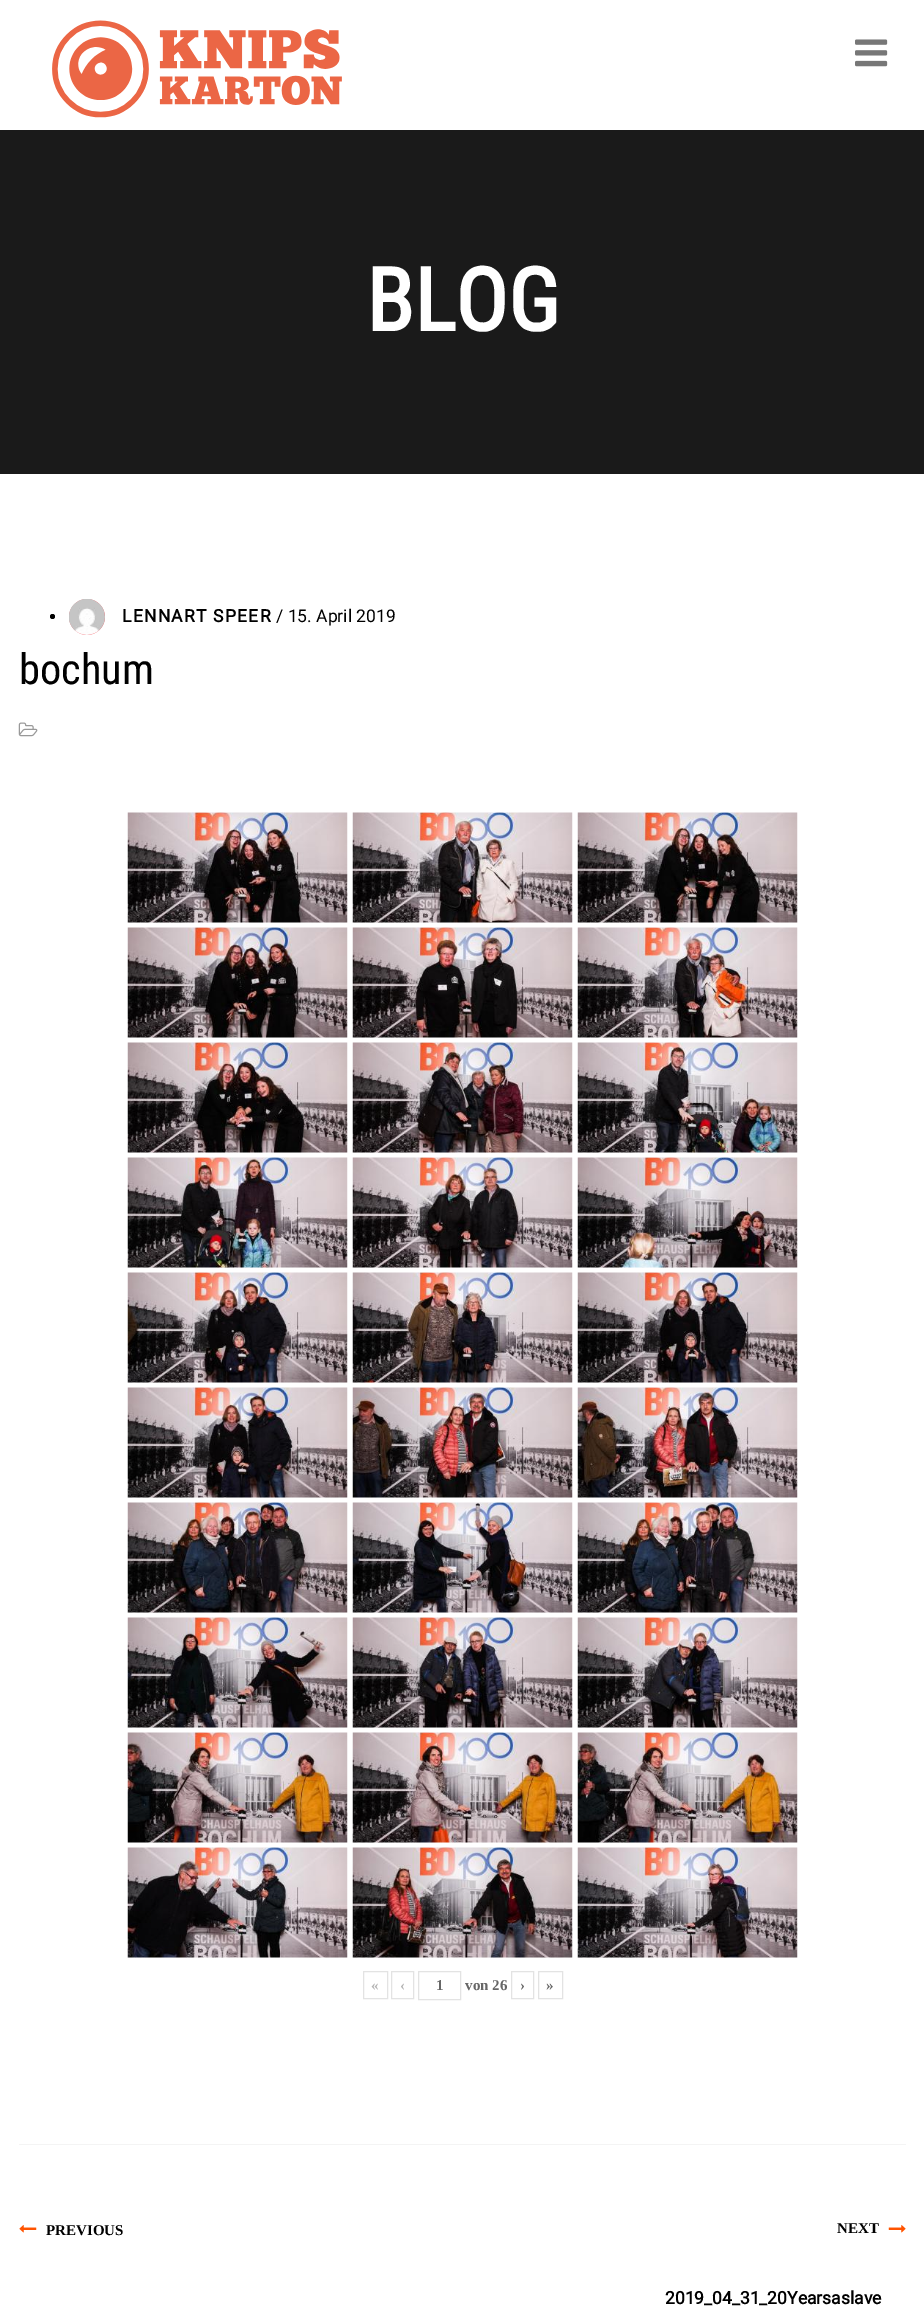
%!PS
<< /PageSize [924 2311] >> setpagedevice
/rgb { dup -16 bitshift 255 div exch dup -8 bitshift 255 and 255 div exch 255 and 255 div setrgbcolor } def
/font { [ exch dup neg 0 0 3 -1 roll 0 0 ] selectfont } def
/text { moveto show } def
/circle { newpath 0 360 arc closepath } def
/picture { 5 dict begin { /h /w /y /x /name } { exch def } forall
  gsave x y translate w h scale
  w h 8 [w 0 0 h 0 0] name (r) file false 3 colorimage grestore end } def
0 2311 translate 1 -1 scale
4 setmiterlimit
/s1 { /RobotoCondensed-Bold 87.5 font 16#FFFFFF rgb } def
/s2 { /Roboto-Regular 17.5 font 16#000000 rgb } def
/s3 { /RobotoCondensed-Regular 42.5 font 16#000000 rgb } def
/s4 { /LiberationSerif-Bold 15 font 16#B3B3B3 rgb } def
/s5 { /LiberationSerif-Bold 15 font 16#666666 rgb } def
/s6 { /LiberationSerif-Bold 15 font 16#000000 rgb } def
/s7 { /Roboto-Bold 17.5 font 16#000000 rgb } def
16#FFFFFF rgb
0 0 924 2311 rectfill
(pic1.raw) 52 20 290 98 picture
(pic2.raw) 855 39 33 28 picture
16#1A1A1A rgb
0 130 924 344 rectfill
s1
(BLOG) 366 331 text
16#F3525A rgb
87 617 18 circle fill
16#000000 rgb
52.5 616.5 2.5 circle fill
(pic3.raw) 69 599 36 36 picture
/Roboto-Bold 17.5 font
122 622 moveto 1.25 0 (LENNART SPEER) ashow
s2
(/ 15. April 2019) 276 622 text
s3
(bochum) 19 684 text
(pic4.raw) 18 722 20 15 picture
(pic5.raw) 127 812 221 111 picture
(pic6.raw) 352 812 221 111 picture
(pic7.raw) 577 812 221 111 picture
(pic8.raw) 127 927 221 111 picture
(pic9.raw) 352 927 221 111 picture
(pic10.raw) 577 927 221 111 picture
(pic11.raw) 127 1042 221 111 picture
(pic12.raw) 352 1042 221 111 picture
(pic13.raw) 577 1042 221 111 picture
(pic14.raw) 127 1157 221 111 picture
(pic15.raw) 352 1157 221 111 picture
(pic16.raw) 577 1157 221 111 picture
(pic17.raw) 127 1272 221 111 picture
(pic18.raw) 352 1272 221 111 picture
(pic19.raw) 577 1272 221 111 picture
(pic20.raw) 127 1387 221 111 picture
(pic21.raw) 352 1387 221 111 picture
(pic22.raw) 577 1387 221 111 picture
(pic23.raw) 127 1502 221 111 picture
(pic24.raw) 352 1502 221 111 picture
(pic25.raw) 577 1502 221 111 picture
(pic26.raw) 127 1617 221 111 picture
(pic27.raw) 352 1617 221 111 picture
(pic28.raw) 577 1617 221 111 picture
(pic29.raw) 127 1732 221 111 picture
(pic30.raw) 352 1732 221 111 picture
(pic31.raw) 577 1732 221 111 picture
(pic32.raw) 127 1847 221 111 picture
(pic33.raw) 352 1847 221 111 picture
(pic34.raw) 577 1847 221 111 picture
16#E3E3E3 rgb
363.5 1971.5 24 27 rectstroke
s4
(«) 371 1990 text
16#E3E3E3 rgb
391.5 1971.5 22 27 rectstroke
s4
(‹) 400 1990 text
16#E3E3E3 rgb
418.5 1971.5 42 28 rectstroke
s5
(1) 436 1990 text
(von 26) 465 1990 text
16#E3E3E3 rgb
511.5 1971.5 22 27 rectstroke
s5
(›) 520 1990 text
16#E3E3E3 rgb
538.5 1971.5 24 27 rectstroke
s5
(») 546 1990 text
16#F4F4F4 rgb
19 2144 887 1 rectfill
(pic35.raw) 19 2225 18 8 picture
s6
(PREVIOUS) 46 2235 text
(NEXT) 837 2233 text
(pic36.raw) 888 2225 18 8 picture
s7
(2019_04_31_20Yearsaslave) 665 2304 text
showpage
